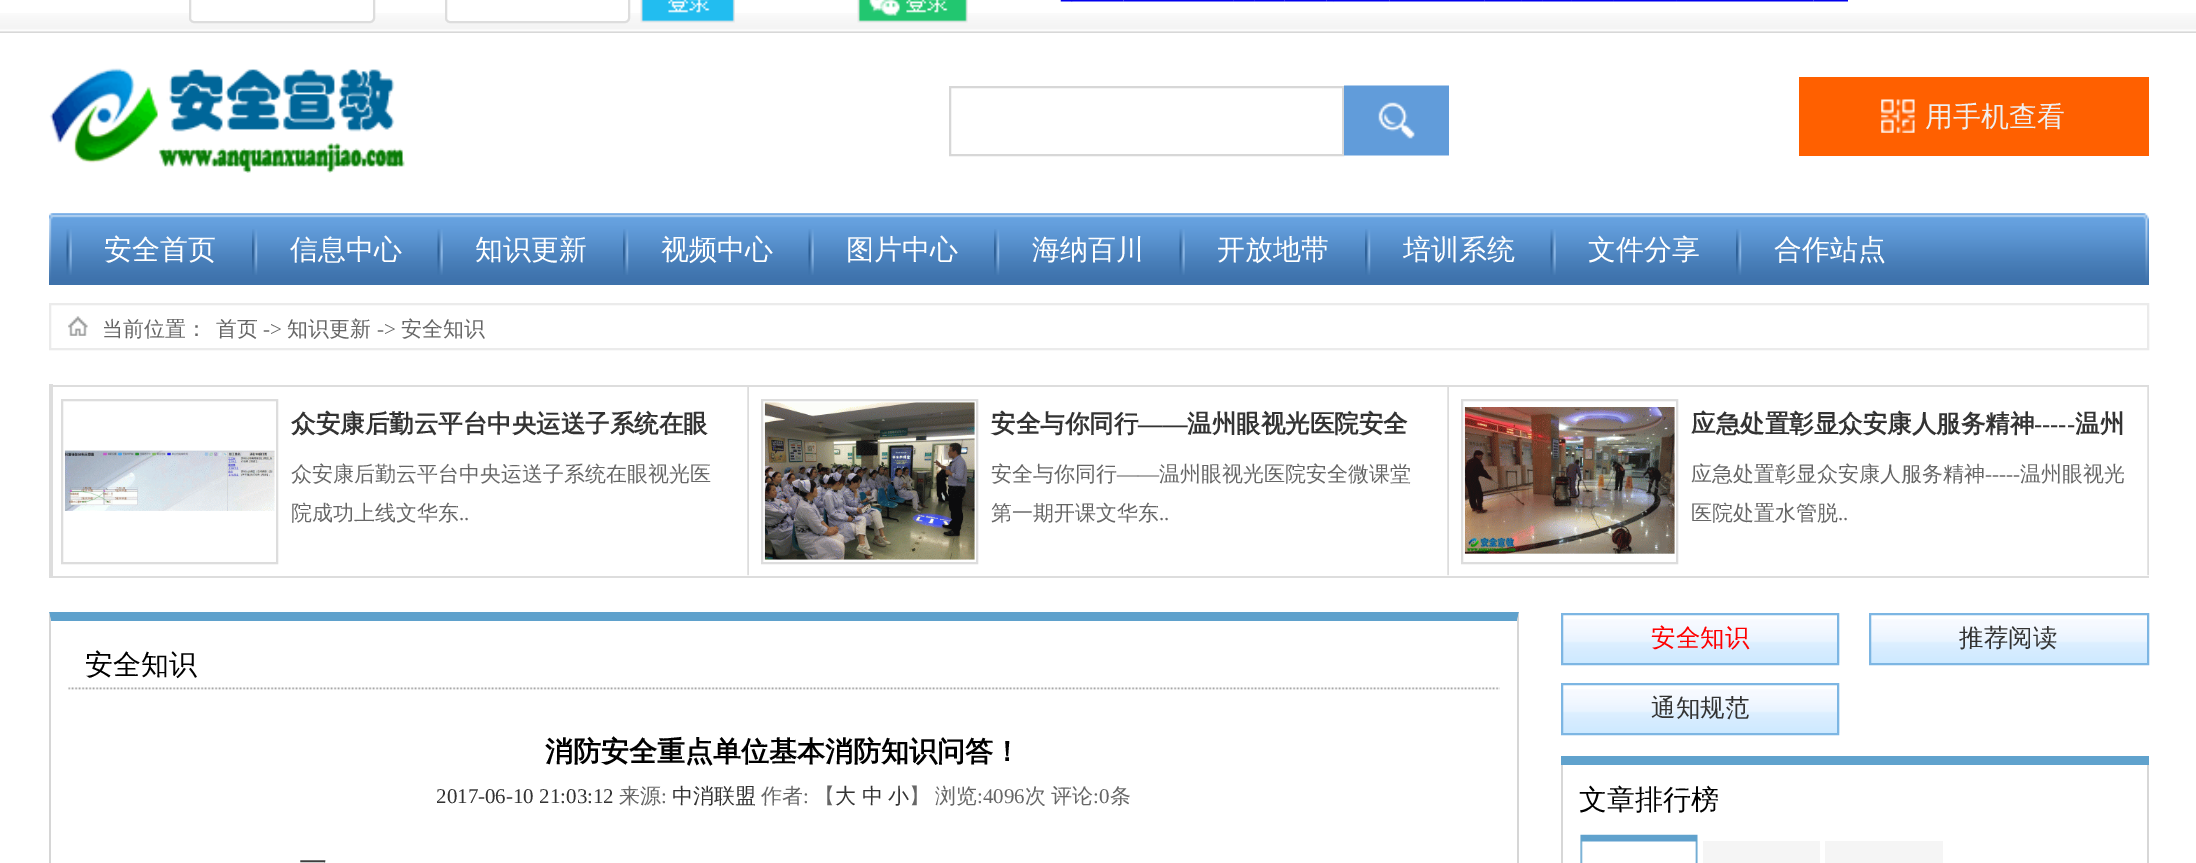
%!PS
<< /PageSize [2196 863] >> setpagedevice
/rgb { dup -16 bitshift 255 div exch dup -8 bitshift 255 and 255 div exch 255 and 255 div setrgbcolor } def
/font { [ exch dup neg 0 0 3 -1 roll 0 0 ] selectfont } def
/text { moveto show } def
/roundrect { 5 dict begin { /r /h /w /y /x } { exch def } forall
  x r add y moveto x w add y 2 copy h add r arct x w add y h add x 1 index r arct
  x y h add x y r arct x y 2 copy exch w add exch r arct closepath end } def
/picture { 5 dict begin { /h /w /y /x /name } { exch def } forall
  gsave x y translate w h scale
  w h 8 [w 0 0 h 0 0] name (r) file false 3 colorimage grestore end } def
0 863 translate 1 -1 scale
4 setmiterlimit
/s1 { /WenQuanYiZenHei-Medium 28 font 16#EFEFEF rgb } def
/s2 { /WenQuanYiZenHei-Medium 28 font 16#FFFFFF rgb } def
/s3 { /WenQuanYiZenHei-Medium 21 font 16#666666 rgb } def
/s4 { /LiberationSerif-Regular 21 font 16#666666 rgb } def
/s5 { /WenQuanYiZenHei-Bold 24.5 font 16#333333 rgb } def
/s6 { /LiberationSerif-Bold 24.5 font 16#333333 rgb } def
/s7 { /WenQuanYiZenHei-Medium 28 font 16#000000 rgb } def
/s8 { /WenQuanYiZenHei-Bold 28 font 16#000000 rgb } def
/s9 { /LiberationSerif-Regular 21 font 16#333333 rgb } def
/s10 { /WenQuanYiZenHei-Medium 21 font 16#333333 rgb } def
/s11 { /WenQuanYiZenHei-Medium 28 font 16#3E3E3E rgb } def
/s12 { /WenQuanYiZenHei-Medium 24.5 font 16#FF0000 rgb } def
/s13 { /WenQuanYiZenHei-Medium 24.5 font 16#333333 rgb } def
16#FFFFFF rgb
0 0 2196 863 rectfill
(pic1.raw) 0 13 2196 20 picture
190 -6 184 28 4 roundrect gsave fill grestore
16#DDDDDD rgb
2 setlinewidth
stroke
16#FFFFFF rgb
446 -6 183 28 4 roundrect gsave fill grestore
16#DDDDDD rgb
stroke
(pic2.raw) 640 0 95 23 picture
(pic3.raw) 857 0 111 23 picture
(pic4.raw) 1060 0 788 2 picture
(pic5.raw) 49 68 356 105 picture
16#D7D7D7 rgb
950 87 393 68 rectstroke
(pic6.raw) 1344 85 105 71 picture
16#FF6000 rgb
1799 77 350 79 rectfill
(pic7.raw) 1881 99 34 34 picture
s1
(用手机查看) 1925 126 text
(pic8.raw) 49 213 2100 72 picture
(pic9.raw) 66 229 6 46 picture
s2
(安全首页) 104 259 text
(pic10.raw) 252 229 6 46 picture
(信息中心) 290 259 text
(pic9.raw) 437 229 6 46 picture
(知识更新) 475 259 text
(pic10.raw) 623 229 6 46 picture
(视频中心) 661 259 text
(pic9.raw) 808 229 6 46 picture
(图片中心) 846 259 text
(pic10.raw) 994 229 6 46 picture
(海纳百川) 1032 259 text
(pic9.raw) 1179 229 6 46 picture
(开放地带) 1217 259 text
(pic10.raw) 1365 229 6 46 picture
(培训系统) 1403 259 text
(pic9.raw) 1550 229 6 46 picture
(文件分享) 1588 259 text
(pic10.raw) 1736 229 6 46 picture
(合作站点) 1774 259 text
16#EBEBEB rgb
50 304 2098 45 rectstroke
(pic11.raw) 68 316 20 20 picture
s3
(当前位置：) 102 336 text
(首页) 216 336 text
s4
(->) 263 336 text
s3
(知识更新) 287 336 text
s4
(->) 377 336 text
s3
(安全知识) 401 336 text
16#DDDDDD rgb
49 384 4 194 rectfill
49 385 2100 2 rectfill
49 576 2100 2 rectfill
(pic12.raw) 747 387 2 189 picture
62 400 215 163 rectstroke
(pic13.raw) 64 450 211 61 picture
s5
(众安康后勤云平台中央运送子系统在眼) 291 432 text
s3
(众安康后勤云平台中央运送子系统在眼视光医) 291 481 text
(院成功上线文华东) 291 520 text
s4
(..) 459 520 text
(pic12.raw) 1447 387 2 189 picture
16#DDDDDD rgb
762 400 215 163 rectstroke
(pic14.raw) 764 402 211 158 picture
s5
(安全与你同行) 991 432 text
s6
(——) 1138 432 text
s5
(温州眼视光医院安全) 1187 432 text
s3
(安全与你同行) 991 481 text
s4
(——) 1117 481 text
s3
(温州眼视光医院安全微课堂) 1159 481 text
(第一期开课文华东) 991 520 text
s4
(..) 1159 520 text
(pic12.raw) 2147 387 2 189 picture
16#DDDDDD rgb
1462 400 215 163 rectstroke
(pic15.raw) 1464 407 211 147 picture
s5
(应急处置彰显众安康人服务精神) 1691 432 text
s6
(-----) 2034 432 text
s5
(温州) 2075 432 text
s3
(应急处置彰显众安康人服务精神) 1691 481 text
s4
(-----) 1985 481 text
s3
(温州眼视光) 2020 481 text
(医院处置水管脱) 1691 520 text
s4
(..) 1838 520 text
16#5FA1CC rgb
49 612 moveto 1519 612 lineto 1517 621 lineto 51 621 lineto closepath fill
16#D6D6D6 rgb
1519 612 moveto 1519 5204 lineto 1517 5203 lineto 1517 621 lineto closepath fill
49 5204 moveto 49 612 lineto 51 621 lineto 51 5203 lineto closepath fill
(pic16.raw) 68 687 1432 3 picture
s7
(安全知识) 85 674 text
s8
(消防安全重点单位基本消防知识问答！) 545 761 text
s9
(2017-06-10 21:03:12) 436 803 text
s3
(来源) 619 803 text
s4
(:) 661 803 text
s10
(中消联盟) 672 803 text
s3
(作者) 761 803 text
s4
(:) 803 803 text
s3
(【) 814 803 text
s10
(大) 835 803 text
(中) 862 803 text
(小) 888 803 text
s3
(】) 909 803 text
(浏览) 935 803 text
s4
(:4096) 977 803 text
/WenQuanYiZenHei-Medium 21 font
1025 803 moveto -1 0 32 (次 评论) widthshow
s4
(:0) 1093 803 text
s3
(条) 1110 803 text
s11
(一) 299 872 text
(pic17.raw) 1563 619 277 44 picture
16#7DB6E3 rgb
1562 614 276 50 rectstroke
s12
(安全知识) 1651 646 text
(pic18.raw) 1871 619 276 44 picture
16#7DB6E3 rgb
1870 614 278 50 rectstroke
s13
(推荐阅读) 1959 646 text
(pic19.raw) 1563 689 277 44 picture
16#7DB6E3 rgb
1562 684 276 50 rectstroke
s13
(通知规范) 1651 716 text
16#60A2CD rgb
1561 756 588 9 rectfill
16#D7D7D7 rgb
2147 765 2 98 rectfill
1561 765 2 98 rectfill
(pic20.raw) 1580 834 118 29 picture
16#F5F5F5 rgb
1703 841 117 22 rectfill
1825 841 118 22 rectfill
s7
(文章排行榜) 1579 809 text
showpage
